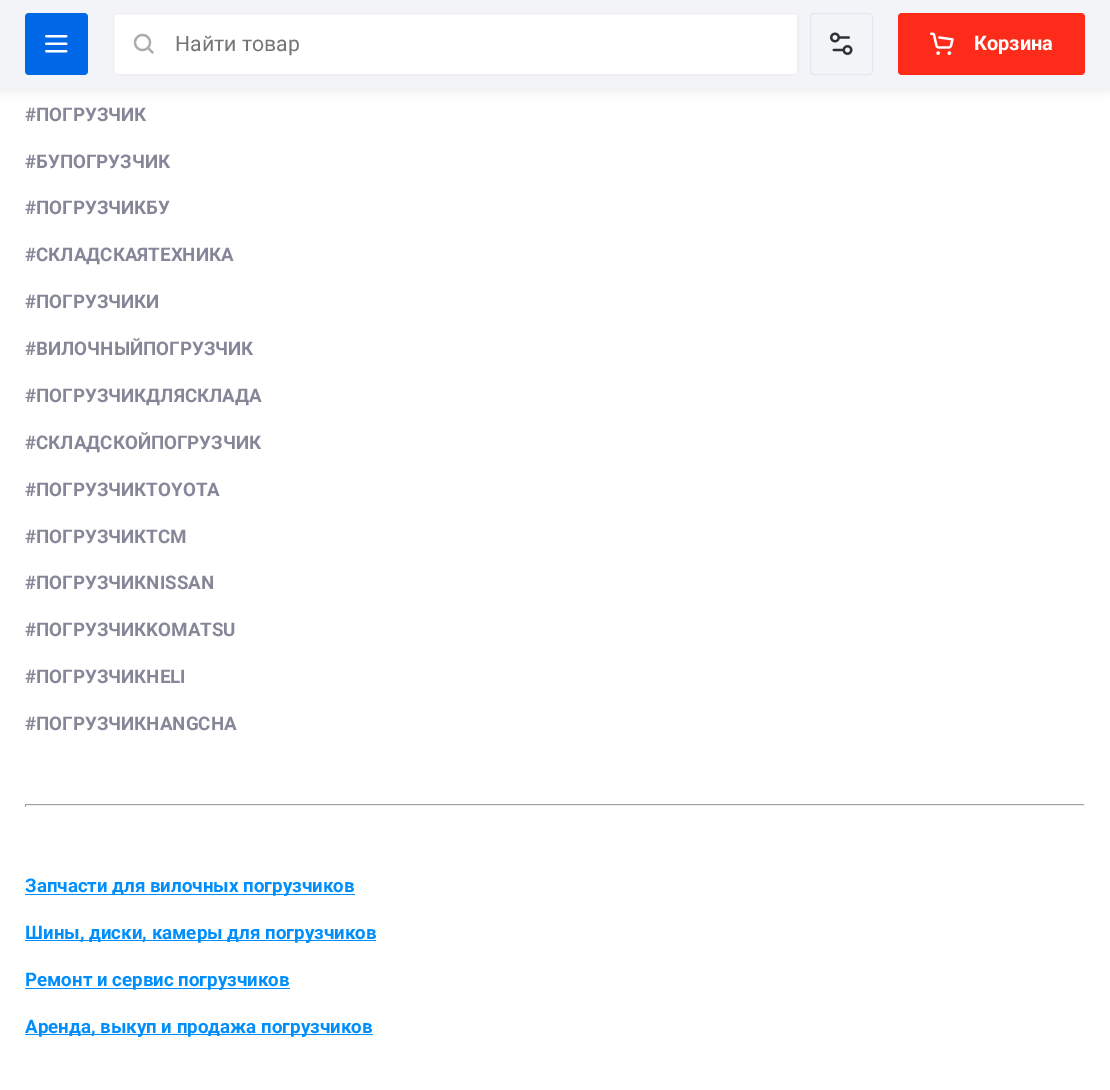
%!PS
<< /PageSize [1110 1090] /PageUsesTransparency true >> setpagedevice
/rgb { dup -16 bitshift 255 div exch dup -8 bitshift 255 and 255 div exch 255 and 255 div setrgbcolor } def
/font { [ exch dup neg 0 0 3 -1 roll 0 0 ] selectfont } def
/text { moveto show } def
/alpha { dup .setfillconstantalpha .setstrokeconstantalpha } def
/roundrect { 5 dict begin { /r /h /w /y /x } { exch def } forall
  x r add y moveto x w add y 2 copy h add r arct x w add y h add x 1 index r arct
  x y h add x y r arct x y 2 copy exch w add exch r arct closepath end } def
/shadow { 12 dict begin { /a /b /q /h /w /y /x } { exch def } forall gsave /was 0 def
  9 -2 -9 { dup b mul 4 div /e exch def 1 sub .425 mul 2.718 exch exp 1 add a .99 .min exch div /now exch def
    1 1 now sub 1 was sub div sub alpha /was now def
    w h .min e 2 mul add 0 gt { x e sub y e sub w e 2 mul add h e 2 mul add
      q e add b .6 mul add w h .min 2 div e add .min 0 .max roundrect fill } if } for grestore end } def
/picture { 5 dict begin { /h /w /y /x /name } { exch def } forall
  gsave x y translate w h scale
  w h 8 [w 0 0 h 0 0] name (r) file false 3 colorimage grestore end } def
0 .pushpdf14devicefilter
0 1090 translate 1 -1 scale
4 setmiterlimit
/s1 { /Roboto-Regular 21.25 font 16#757575 rgb } def
/s2 { /Roboto-Bold 20 font 16#FFFFFF rgb } def
/s3 { /Roboto-Bold 18.75 font 16#858798 rgb } def
/s4 { /Roboto-Bold 18.75 font 16#008EFC rgb } def
16#FFFFFF rgb
0 0 1110 1090 rectfill
16#000000 rgb
0 3 1110 87 0 5 0.08 shadow
16#F2F4F8 rgb
0 0 1110 88 rectfill
16#0067E7 rgb
25 13 63 62 4 roundrect fill
(pic1.raw) 45 35 23 18 picture
16#FFFFFF rgb
113 13 685 62 4 roundrect fill
0.4 alpha
16#D2D3E0 rgb
113.5 13.5 684 61 3.5 roundrect stroke
1 alpha
(pic2.raw) 133 33 21 21 picture
s1
(Найти товар) 175 51 text
16#E5E7EE rgb
810.5 13.5 62 61 3.5 roundrect stroke
(pic3.raw) 830 32 23 23 picture
16#FD2C1A rgb
898 13 187 62 4 roundrect fill
(pic4.raw) 930 32 24 23 picture
s2
(Корзина) 974 50 text
s3
(#ПОГРУЗЧИК) 25 121 text
(#БУПОГРУЗЧИК) 25 168 text
(#ПОГРУЗЧИКБУ) 25 214 text
(#СКЛАДСКАЯТЕХНИКА) 25 261 text
(#ПОГРУЗЧИКИ) 25 308 text
(#ВИЛОЧНЫЙПОГРУЗЧИК) 25 355 text
(#ПОГРУЗЧИКДЛЯСКЛАДА) 25 402 text
(#СКЛАДСКОЙПОГРУЗЧИК) 25 449 text
(#ПОГРУЗЧИКTOYOTA) 25 496 text
(#ПОГРУЗЧИКTCM) 25 543 text
(#ПОГРУЗЧИКNISSAN) 25 589 text
(#ПОГРУЗЧИКKOMATSU) 25 636 text
(#ПОГРУЗЧИКHELI) 25 683 text
(#ПОГРУЗЧИКHANGCHA) 25 730 text
16#9F9F9F rgb
25 804 1060 1 rectfill
16#EEEEEE rgb
1084 804 1 3 rectfill
25 805 1060 1 rectfill
16#9F9F9F rgb
25 804 1 3 rectfill
16#008EFC rgb
25 894 330 1 rectfill
(Запчасти для вилочных погрузчиков) 25 892 text
25 940 351 1 rectfill
(Шины, диски, камеры для погрузчиков) 25 939 text
25 988 265 1 rectfill
(Ремонт и сервис погрузчиков) 25 986 text
25 1034 348 1 rectfill
(Аренда, выкуп и продажа погрузчиков) 25 1033 text
.poppdf14devicefilter showpage
